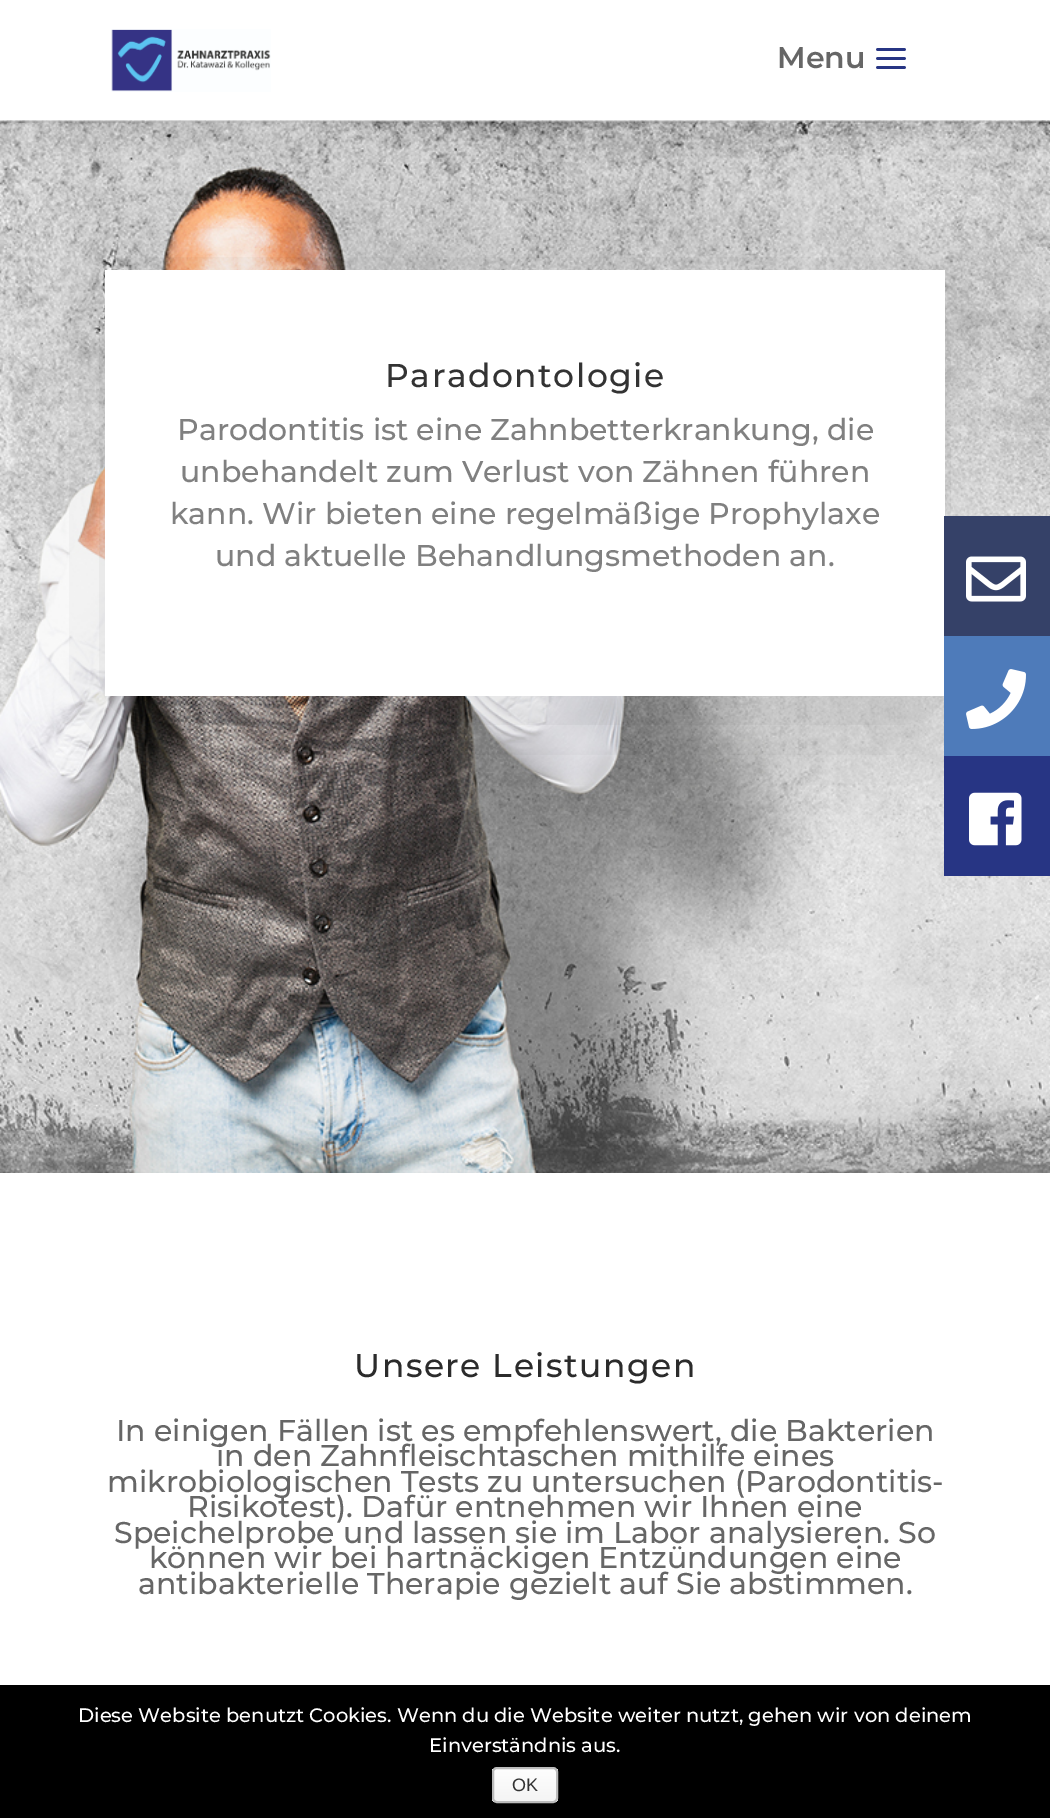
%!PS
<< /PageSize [1050 1818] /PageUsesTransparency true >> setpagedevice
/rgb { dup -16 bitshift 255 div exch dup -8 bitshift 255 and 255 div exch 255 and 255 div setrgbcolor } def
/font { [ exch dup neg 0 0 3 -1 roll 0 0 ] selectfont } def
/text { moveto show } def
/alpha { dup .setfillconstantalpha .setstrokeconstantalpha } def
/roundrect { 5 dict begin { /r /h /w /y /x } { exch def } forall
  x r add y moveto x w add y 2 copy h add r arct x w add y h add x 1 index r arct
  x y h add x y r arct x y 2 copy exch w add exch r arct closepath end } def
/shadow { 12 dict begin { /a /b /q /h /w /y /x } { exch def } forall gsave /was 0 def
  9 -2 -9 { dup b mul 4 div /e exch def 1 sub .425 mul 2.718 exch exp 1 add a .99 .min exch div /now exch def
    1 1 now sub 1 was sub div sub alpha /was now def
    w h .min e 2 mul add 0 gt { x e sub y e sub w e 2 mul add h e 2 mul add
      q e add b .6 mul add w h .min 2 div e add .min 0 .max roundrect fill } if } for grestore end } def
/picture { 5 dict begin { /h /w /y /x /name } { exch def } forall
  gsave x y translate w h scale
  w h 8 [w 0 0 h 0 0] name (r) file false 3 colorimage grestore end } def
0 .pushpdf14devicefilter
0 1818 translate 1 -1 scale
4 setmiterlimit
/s1 { /Montserrat-SemiBold 30 font 16#666666 rgb } def
/s2 { /Montserrat-Medium 30 font 16#808080 rgb } def
/s3 { /Montserrat-Medium 30 font 16#666666 rgb } def
/s4 { /Montserrat-Medium 19.5 font 16#FFFFFF rgb } def
/s5 { /LiberationSans-Regular 18 font 16#333333 rgb } def
16#FFFFFF rgb
0 0 1050 1818 rectfill
(pic3.raw) 0 120 1050 1053 picture
16#000000 rgb
114 302 822 408 0 60 0.15 shadow
0.1 alpha
0 120 1050 2 rectfill
1 alpha
(pic1.raw) 111 29 160 63 picture
s1
(Menu) 777 68 text
(pic2.raw) 876 48 30 21 picture
16#FFFFFF rgb
105 270 840 426 rectfill
/Montserrat-Medium 33 font
16#333333 rgb
385 387 moveto 1.5 0 (Paradontologie) ashow
s2
(Parodontitis ist eine Zahnbetterkrankung, die) 177 440 text
(unbehandelt zum Verlust von Zähnen führen) 180 482 text
(kann. Wir bieten eine regelmäßige Prophylaxe) 170 524 text
(und aktuelle Behandlungsmethoden an.) 215 566 text
/Montserrat-Medium 33 font
16#2B2B2B rgb
354 1377 moveto 1.5 0 (Unsere Leistungen) ashow
s3
(In einigen Fällen ist es empfehlenswert, die Bakterien) 116 1441 text
(in den Zahnfleischtaschen mithilfe eines) 216 1466 text
(mikrobiologischen Tests zu untersuchen \(Parodontitis-) 107 1492 text
(Risikotest\). Dafür entnehmen wir Ihnen eine) 187 1517 text
(Speichelprobe und lassen sie im Labor analysieren. So) 114 1543 text
(können wir bei hartnäckigen Entzündungen eine) 149 1568 text
(antibakterielle Therapie gezielt auf Sie abstimmen.) 138 1594 text
16#354168 rgb
944 516 106 120 rectfill
(pic4.raw) 966 556 60 46 picture
16#4E7BBA rgb
944 636 106 120 rectfill
(pic5.raw) 966 669 60 60 picture
16#273584 rgb
944 756 106 120 rectfill
(pic6.raw) 969 792 53 54 picture
16#000000 rgb
0 1685 1050 133 rectfill
s4
(Diese Website benutzt Cookies. Wenn du die Website weiter nutzt, gehen wir von deinem) 78 1722 text
(Einverständnis aus.) 429 1752 text
gsave
492 1767 66 36 5 roundrect clip newpath
gsave 492 1769 moveto 558 1769 lineto 558 1802 lineto 492 1802 lineto closepath clip newpath
<< /ShadingType 2 /ColorSpace /DeviceRGB /Coords [525 1769 525 1802] /Extend [true true] /Function << /FunctionType 2 /Domain [0 1] /C0 [0.996 0.996 0.996] /C1 [0.957 0.957 0.957] /N 1 >> >> shfill grestore
grestore
16#BBBBBB rgb
2 setlinewidth
493 1768 64 34 4 roundrect stroke
s5
(OK) 512 1791 text
.poppdf14devicefilter showpage
